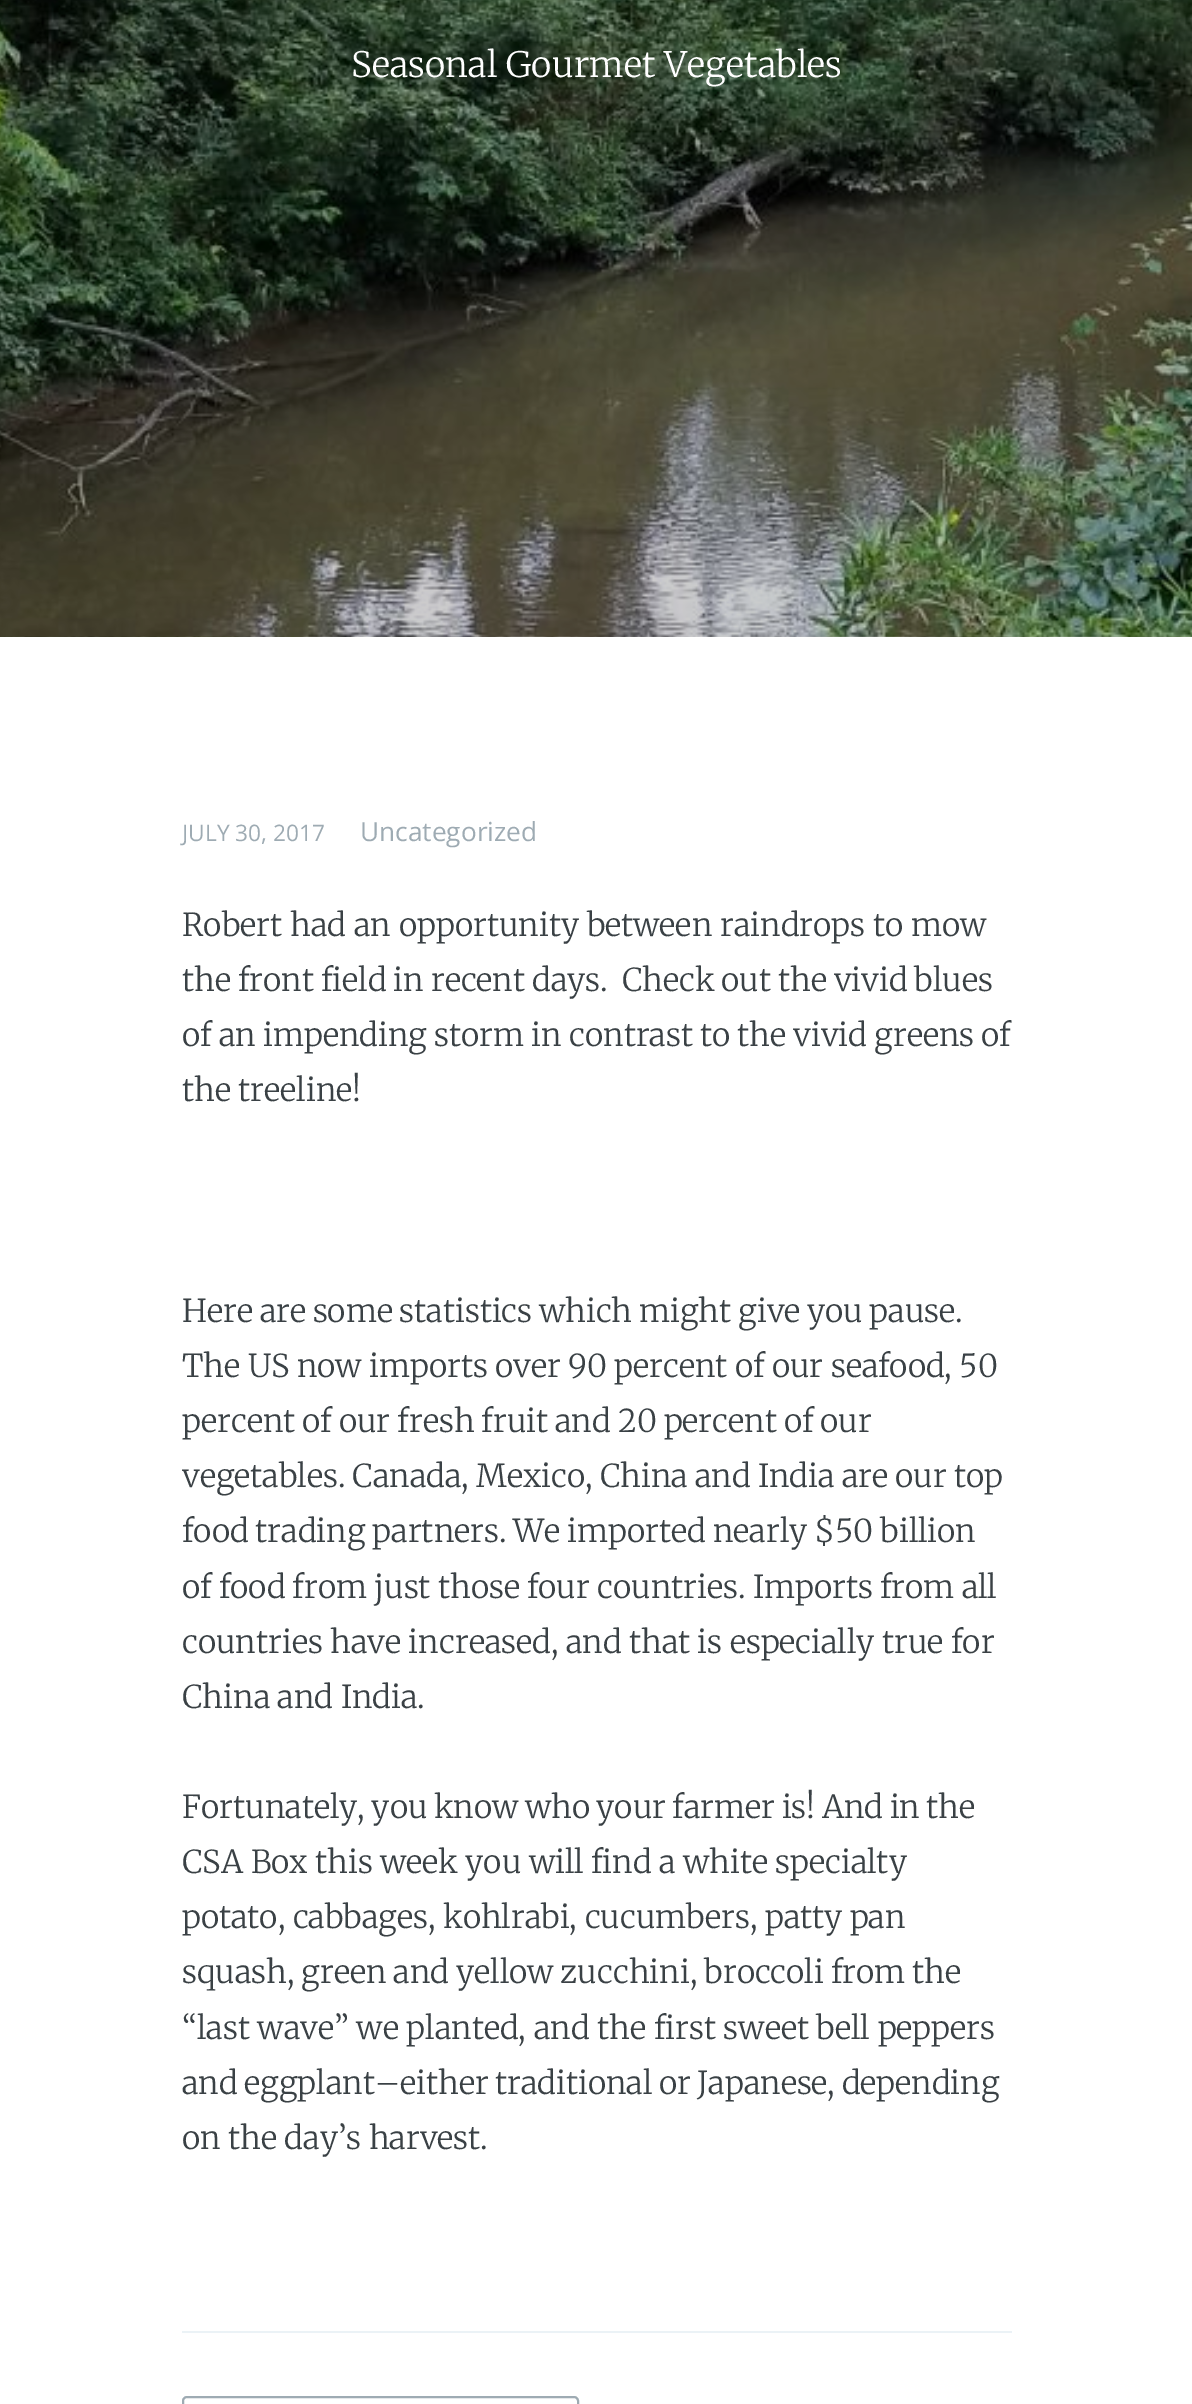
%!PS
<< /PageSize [1192 2404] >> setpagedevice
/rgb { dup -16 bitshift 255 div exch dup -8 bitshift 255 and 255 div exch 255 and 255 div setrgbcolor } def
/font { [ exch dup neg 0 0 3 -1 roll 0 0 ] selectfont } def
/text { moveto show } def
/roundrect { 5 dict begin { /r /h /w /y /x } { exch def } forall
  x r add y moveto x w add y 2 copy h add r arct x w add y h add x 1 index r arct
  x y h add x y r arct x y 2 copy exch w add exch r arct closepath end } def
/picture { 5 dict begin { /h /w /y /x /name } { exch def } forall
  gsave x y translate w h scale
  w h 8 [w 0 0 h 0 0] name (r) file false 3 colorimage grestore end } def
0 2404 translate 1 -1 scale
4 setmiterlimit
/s1 { /OpenSans-Regular 22.75 font 16#9EABB3 rgb } def
/s2 { /OpenSans-Regular 26.25 font 16#9EABB3 rgb } def
/s3 { /Merriweather-Light 31.5 font 16#3A4145 rgb } def
16#FFFFFF rgb
0 0 1192 2404 rectfill
(pic1.raw) 0 0 1192 637 picture
/Merriweather-Light 35 font
351 77 moveto 0.2 0 (Seasonal Gourmet Vegetables) ashow
16#EBF2F6 rgb
182 2331 830 2 rectfill
s1
(JULY 30, 2017) 182 841 text
s2
(Uncategorized) 360 841 text
/Merriweather-Light 31.5 font
16#3A4145 rgb
182 936 moveto 0.5 0 32 (Robert had an opportunity between raindrops to mow) widthshow
182 991 moveto -0.5 0 32 (the front field in recent days.  Check out the vivid blues) widthshow
182 1046 moveto -0.25 0 32 (of an impending storm in contrast to the vivid greens of) widthshow
(the treeline!) 182 1101 text
182 1322 moveto -0.75 0 32 (Here are some statistics which might give you pause.) widthshow
182 1377 moveto -0.1 0 32 (The US now imports over 90 percent of our seafood, 50) widthshow
182 1432 moveto -0.5 0 32 (percent of our fresh fruit and 20 percent of our) widthshow
182 1487 moveto -0.25 0 32 (vegetables. Canada, Mexico, China and India are our top) widthshow
182 1542 moveto -0.5 0 32 (food trading partners. We imported nearly $50 billion) widthshow
182 1598 moveto -0.25 0 32 (of food from just those four countries. Imports from all) widthshow
(countries have increased, and that is especially true for) 182 1653 text
(China and India.) 182 1708 text
182 1818 moveto -1 0 32 (Fortunately, you know who your farmer is! And in the) widthshow
(CSA Box this week you will find a white specialty) 182 1873 text
(potato, cabbages, kohlrabi, cucumbers, patty pan) 182 1928 text
182 1983 moveto -0.5 0 32 (squash, green and yellow zucchini, broccoli from the) widthshow
182 2039 moveto 0.25 0 32 (“last wave” we planted, and the first sweet bell peppers) widthshow
182 2094 moveto -1 0 32 (and eggplant–either traditional or Japanese, depending) widthshow
(on the day’s harvest.) 182 2149 text
16#9EABB3 rgb
2 setlinewidth
183 2397 395 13 4 roundrect stroke
showpage
